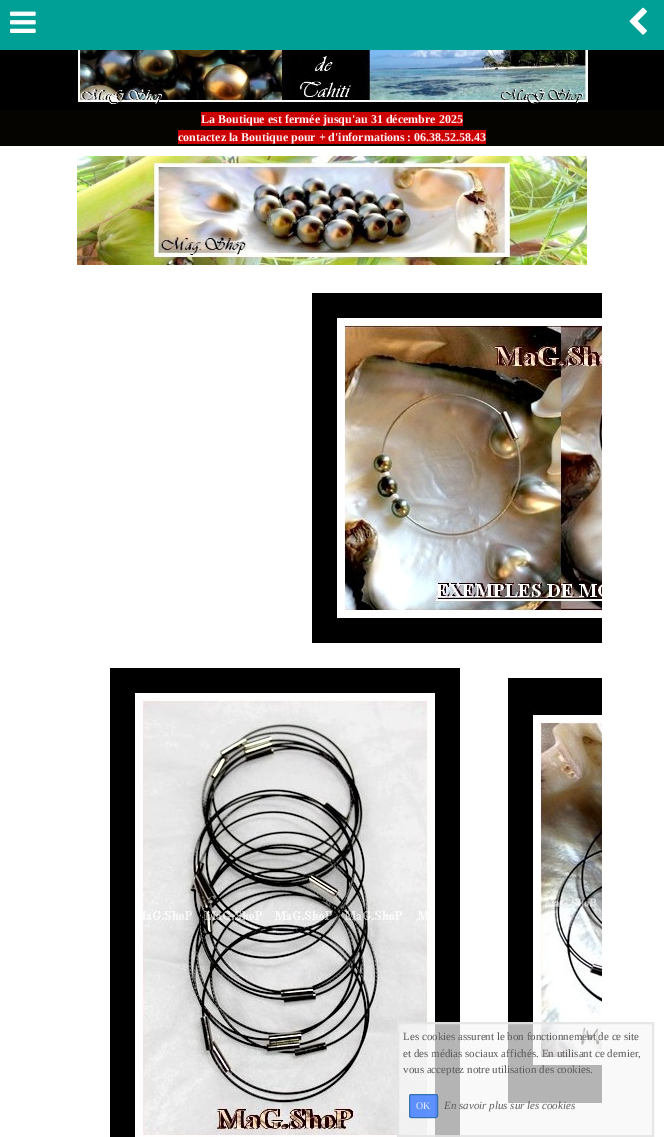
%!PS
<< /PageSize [664 1137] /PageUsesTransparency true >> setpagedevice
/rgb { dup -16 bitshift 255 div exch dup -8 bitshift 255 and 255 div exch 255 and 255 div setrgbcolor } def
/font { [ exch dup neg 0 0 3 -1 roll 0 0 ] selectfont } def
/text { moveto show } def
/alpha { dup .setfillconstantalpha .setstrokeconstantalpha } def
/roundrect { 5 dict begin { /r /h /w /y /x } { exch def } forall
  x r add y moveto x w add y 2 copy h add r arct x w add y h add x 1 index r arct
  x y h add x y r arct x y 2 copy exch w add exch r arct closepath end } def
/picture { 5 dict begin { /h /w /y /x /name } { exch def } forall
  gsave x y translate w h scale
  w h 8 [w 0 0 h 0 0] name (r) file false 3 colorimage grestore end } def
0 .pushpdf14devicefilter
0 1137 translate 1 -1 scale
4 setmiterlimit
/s1 { /LiberationSerif-Bold 12 font 16#FFF0F5 rgb } def
/s2 { /LiberationSerif-Regular 11 font 16#5B5B5B rgb } def
/s3 { /LiberationSerif-Regular 10 font 16#E8EFFF rgb } def
/s4 { /LiberationSerif-Italic 11 font 16#5B5B5B rgb } def
16#FFFFFF rgb
0 0 664 1137 rectfill
16#00A096 rgb
0 0 664 50 rectfill
(pic1.raw) 10 11 26 22 picture
(pic2.raw) 629 7 18 28 picture
(pic3.raw) 77 156 510 109 picture
(pic4.raw) 312 293 290 350 picture
(pic5.raw) 110 668 350 469 picture
(pic6.raw) 508 678 94 425 picture
16#050400 rgb
0 110 664 36 rectfill
(pic7.raw) 0 50 664 60 picture
16#CC0000 rgb
201 112 262 14 rectfill
s1
(La Boutique est fermée jusqu'au 31 décembre 2025) 201 123 text
16#CC0000 rgb
178 130 308 14 rectfill
s1
(contactez la Boutique pour + d'informations : 06.38.52.58.43) 178 141 text
0.73 alpha
16#F7F7F7 rgb
397 1022 257 115 rectfill
0.86 alpha
16#E3E3E3 rgb
2 setlinewidth
398 1023 255 113 rectstroke
1 alpha
s2
(Les cookies assurent le bon fonctionnement de ce site) 403 1040 text
(et des médias sociaux affichés. En utilisant ce dernier,) 403 1057 text
(vous acceptez notre utilisation des cookies.) 403 1073 text
0.86 alpha
16#447FFF rgb
409 1094 29 24 2.5 roundrect fill
16#2E6DA4 rgb
1 setlinewidth
409.5 1094.5 28 23 2 roundrect stroke
1 alpha
s3
(OK) 416 1109 text
s4
(En savoir plus sur les cookies) 444 1109 text
.poppdf14devicefilter showpage
